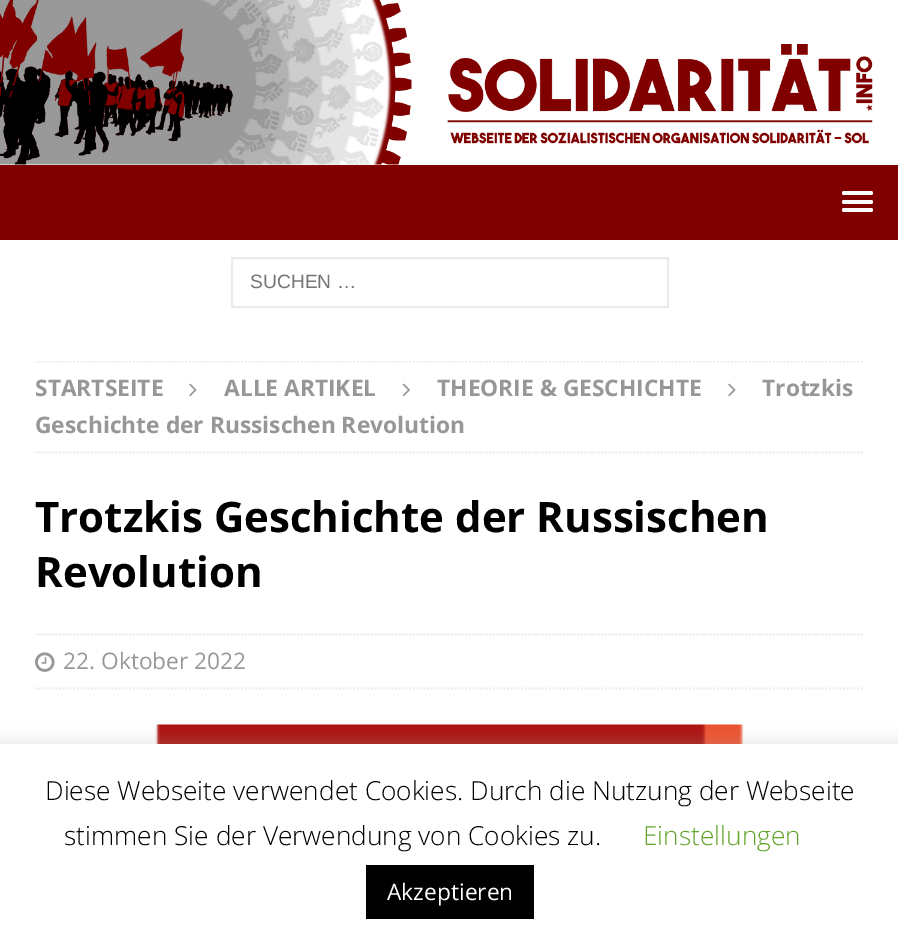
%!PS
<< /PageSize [898 947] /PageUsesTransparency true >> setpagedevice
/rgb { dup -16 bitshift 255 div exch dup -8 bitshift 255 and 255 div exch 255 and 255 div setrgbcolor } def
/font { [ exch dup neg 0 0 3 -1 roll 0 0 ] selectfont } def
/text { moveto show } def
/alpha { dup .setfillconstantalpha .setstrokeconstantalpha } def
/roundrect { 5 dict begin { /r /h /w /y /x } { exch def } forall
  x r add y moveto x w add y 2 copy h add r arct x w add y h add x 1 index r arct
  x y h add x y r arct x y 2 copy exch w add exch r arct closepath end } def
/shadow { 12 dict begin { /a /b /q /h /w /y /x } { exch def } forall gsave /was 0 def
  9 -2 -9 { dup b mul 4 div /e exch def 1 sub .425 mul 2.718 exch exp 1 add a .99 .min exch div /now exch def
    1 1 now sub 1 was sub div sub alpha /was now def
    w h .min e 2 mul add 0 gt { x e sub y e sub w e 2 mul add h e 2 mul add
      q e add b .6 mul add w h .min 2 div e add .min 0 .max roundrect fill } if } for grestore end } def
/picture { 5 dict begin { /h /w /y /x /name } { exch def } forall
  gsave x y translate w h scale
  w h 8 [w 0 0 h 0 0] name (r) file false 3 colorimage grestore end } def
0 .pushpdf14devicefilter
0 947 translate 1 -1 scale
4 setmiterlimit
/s1 { /LiberationSans-Regular 19.25 font 16#757575 rgb } def
/s2 { /OpenSans-Bold 22.75 font 16#979797 rgb } def
/s3 { /OpenSans-Bold 42 font 16#000000 rgb } def
/s4 { /OpenSans-Regular 22.75 font 16#979797 rgb } def
/s5 { /OpenSans-Light 26.25 font 16#000000 rgb } def
/s6 { /OpenSans-Light 26.25 font 16#62A329 rgb } def
/s7 { /OpenSans-Regular 22.75 font 16#FFFFFF rgb } def
16#FFFFFF rgb
0 0 898 947 rectfill
(pic1.raw) 0 0 873 165 picture
16#800000 rgb
0 165 898 75 rectfill
16#FFFFFF rgb
842 191 31 4 2 roundrect fill
842 200 31 4 2 roundrect fill
842 208 31 4 2 roundrect fill
16#EBEBEB rgb
2 setlinewidth
232 258 436 49 rectstroke
s1
(SUCHEN …) 250 288 text
gsave
35 361 830 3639 rectclip
16#EBEBEB rgb
1.8 setlinewidth
[1.75 1.75] 0 setdash
35 361.5 moveto 864.5 361.5 lineto stroke
grestore
16#EBEBEB rgb
1.8 setlinewidth
[1.75 1.75] 0 setdash
35 452.5 moveto 864.5 452.5 lineto stroke
s2
(STARTSEITE) 35 396 text
(pic2.raw) 189 383 8 14 picture
(ALLE ARTIKEL) 224 396 text
(pic3.raw) 402 383 8 14 picture
(THEORIE & GESCHICHTE) 437 396 text
(pic2.raw) 728 383 8 14 picture
(Trotzkis) 762 396 text
(Geschichte der Russischen Revolution) 35 433 text
s3
(Trotzkis Geschichte der Russischen) 35 532 text
(Revolution) 35 587 text
16#EBEBEB rgb
35 634.5 moveto 864.5 634.5 lineto stroke
35 688.5 moveto 864.5 688.5 lineto stroke
(pic4.raw) 35 652 20 20 picture
s4
(22. Oktober 2022) 63 669 text
(pic5.raw) 155 724 589 20 picture
16#ACABAB rgb
0 742 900 205 0 9 0.3 shadow
16#FFFFFF rgb
0 744 898 203 rectfill
s5
(Diese Webseite verwendet Cookies. Durch die Nutzung der Webseite) 45 800 text
(stimmen Sie der Verwendung von Cookies zu.) 64 845 text
s6
(Einstellungen) 643 845 text
16#000000 rgb
366 865 168 54 rectfill
s7
(Akzeptieren) 387 900 text
.poppdf14devicefilter showpage
